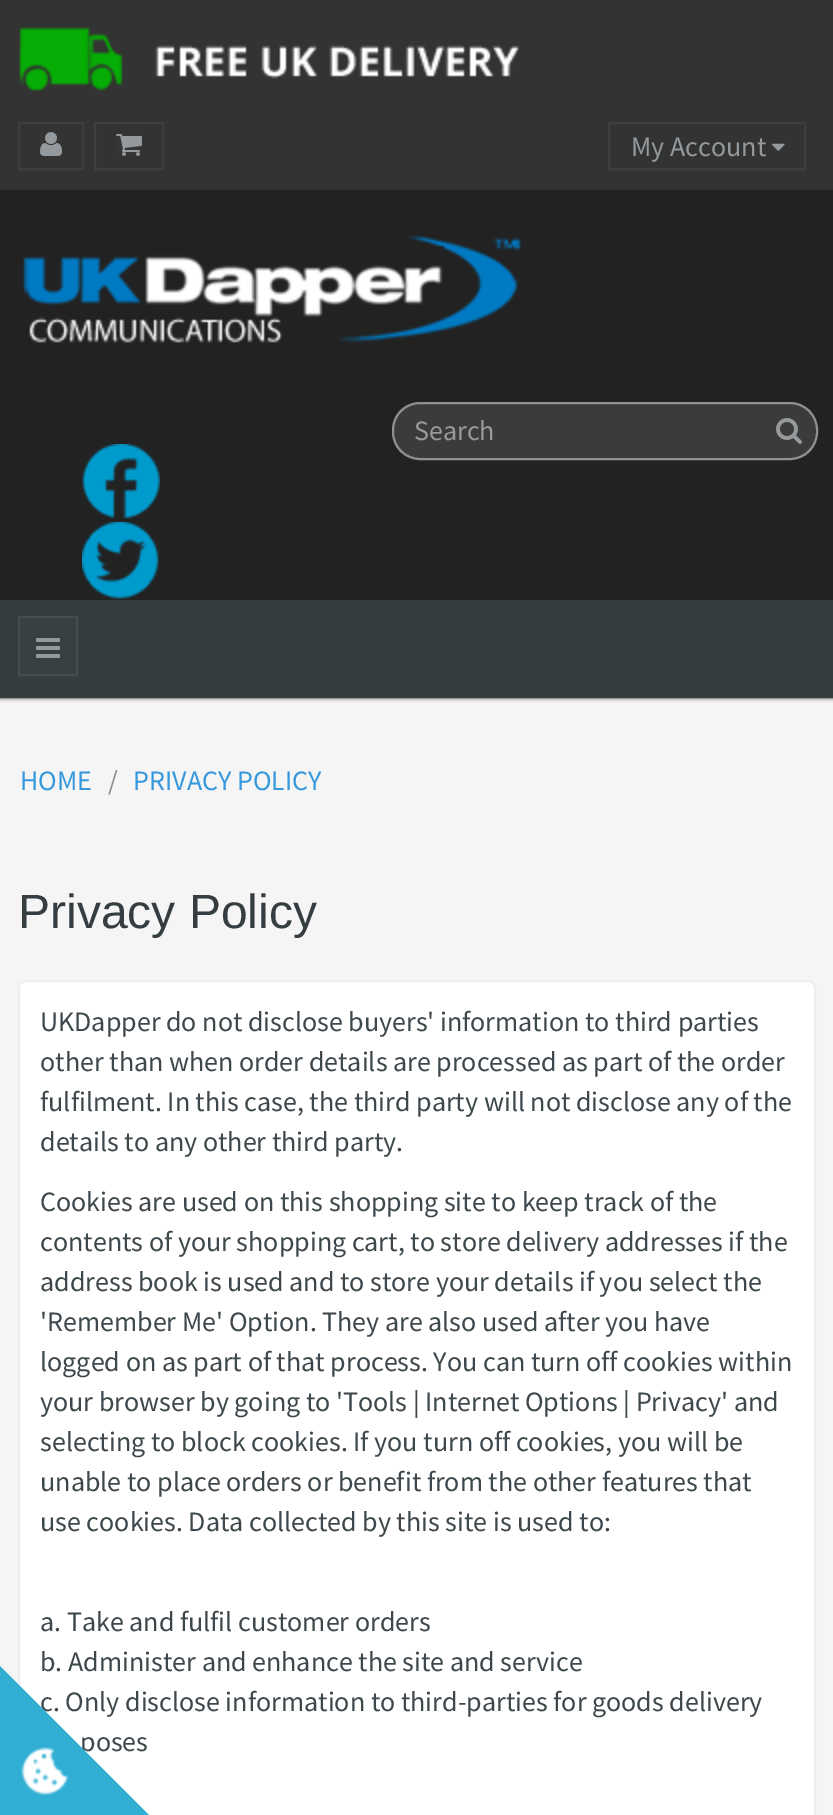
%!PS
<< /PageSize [833 1815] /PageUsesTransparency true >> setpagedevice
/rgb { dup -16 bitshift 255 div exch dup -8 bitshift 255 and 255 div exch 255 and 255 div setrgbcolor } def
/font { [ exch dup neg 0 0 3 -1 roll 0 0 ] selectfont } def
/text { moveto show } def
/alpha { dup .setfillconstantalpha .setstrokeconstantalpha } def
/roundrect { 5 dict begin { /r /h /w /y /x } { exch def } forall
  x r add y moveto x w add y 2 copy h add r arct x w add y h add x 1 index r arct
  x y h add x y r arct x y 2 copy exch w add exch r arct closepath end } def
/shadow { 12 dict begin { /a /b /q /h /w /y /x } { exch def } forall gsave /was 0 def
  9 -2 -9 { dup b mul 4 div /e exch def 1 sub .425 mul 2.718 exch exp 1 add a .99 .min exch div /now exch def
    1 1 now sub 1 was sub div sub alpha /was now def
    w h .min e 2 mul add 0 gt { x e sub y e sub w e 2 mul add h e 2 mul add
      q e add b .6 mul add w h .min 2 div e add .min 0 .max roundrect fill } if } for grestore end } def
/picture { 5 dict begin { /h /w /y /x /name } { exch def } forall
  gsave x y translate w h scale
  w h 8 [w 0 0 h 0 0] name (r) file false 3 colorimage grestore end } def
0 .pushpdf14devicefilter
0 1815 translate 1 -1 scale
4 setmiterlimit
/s1 { /SourceSansPro-Regular 28 font 16#93999D rgb } def
/s2 { /SourceSansPro-Regular 28 font 16#999999 rgb } def
/s3 { /SourceSansPro-Regular 28 font 16#3498DB rgb } def
/s4 { /SourceSansPro-Regular 28 font 16#8C8C8C rgb } def
/s5 { /LiberationSans-Regular 48 font 16#353D41 rgb } def
/s6 { /SourceSansPro-Regular 28 font 16#3E474B rgb } def
16#F5F5F5 rgb
0 0 833 1815 rectfill
16#121212 rgb
0 0 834 698 0 2 1 shadow
16#333333 rgb
0 0 833 190 rectfill
16#3E3E3E rgb
2 setlinewidth
19 123 64 46 rectstroke
(pic1.raw) 40 132 22 24 picture
95 123 68 46 rectstroke
(pic2.raw) 116 134 26 22 picture
(pic3.raw) 19 27 501 64 picture
609 123 196 46 rectstroke
s1
(My Account) 631 156 text
(pic4.raw) 772 143 13 8 picture
16#222222 rgb
0 190 833 410 rectfill
(pic5.raw) 23 235 498 115 picture
16#3B3B3B rgb
393 403 424 56 27 roundrect gsave fill grestore
16#909090 rgb
stroke
s2
(Search) 414 440 text
(pic6.raw) 776 418 26 26 picture
(pic7.raw) 82 444 78 75 picture
(pic8.raw) 82 522 78 78 picture
16#353D41 rgb
0 600 833 98 rectfill
16#394044 rgb
19 617 moveto 77 617 lineto 77 675 lineto 19 675 lineto closepath gsave fill grestore
16#454D50 rgb
stroke
(pic9.raw) 36 638 24 20 picture
s3
(HOME) 20 790 text
s4
(/) 108 790 text
s3
(PRIVACY POLICY) 133 790 text
s5
(Privacy Policy) 18 928 text
16#FFFFFF rgb
19 981 796 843 7 roundrect gsave fill grestore
16#EBEEF2 rgb
stroke
s6
(UKDapper do not disclose buyers' information to third parties) 40 1031 text
(other than when order details are processed as part of the order) 40 1071 text
(fulfilment. In this case, the third party will not disclose any of the) 40 1111 text
(details to any other third party.) 40 1151 text
(Cookies are used on this shopping site to keep track of the) 40 1211 text
(contents of your shopping cart, to store delivery addresses if the) 40 1251 text
(address book is used and to store your details if you select the) 40 1291 text
('Remember Me' Option. They are also used after you have) 40 1331 text
(logged on as part of that process. You can turn off cookies within) 40 1371 text
(your browser by going to 'Tools | Internet Options | Privacy' and) 40 1411 text
(selecting to block cookies. If you turn off cookies, you will be) 40 1451 text
(unable to place orders or benefit from the other features that) 40 1491 text
(use cookies. Data collected by this site is used to:) 40 1531 text
(a. Take and fulfil customer orders) 40 1631 text
(b. Administer and enhance the site and service) 40 1671 text
(c. Only disclose information to third-parties for goods delivery) 40 1711 text
(poses) 80 1751 text
16#30AED3 rgb
150 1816 moveto 0 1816 lineto 0 1666 lineto closepath fill
(pic10.raw) 21 1747 48 48 picture
.poppdf14devicefilter showpage
